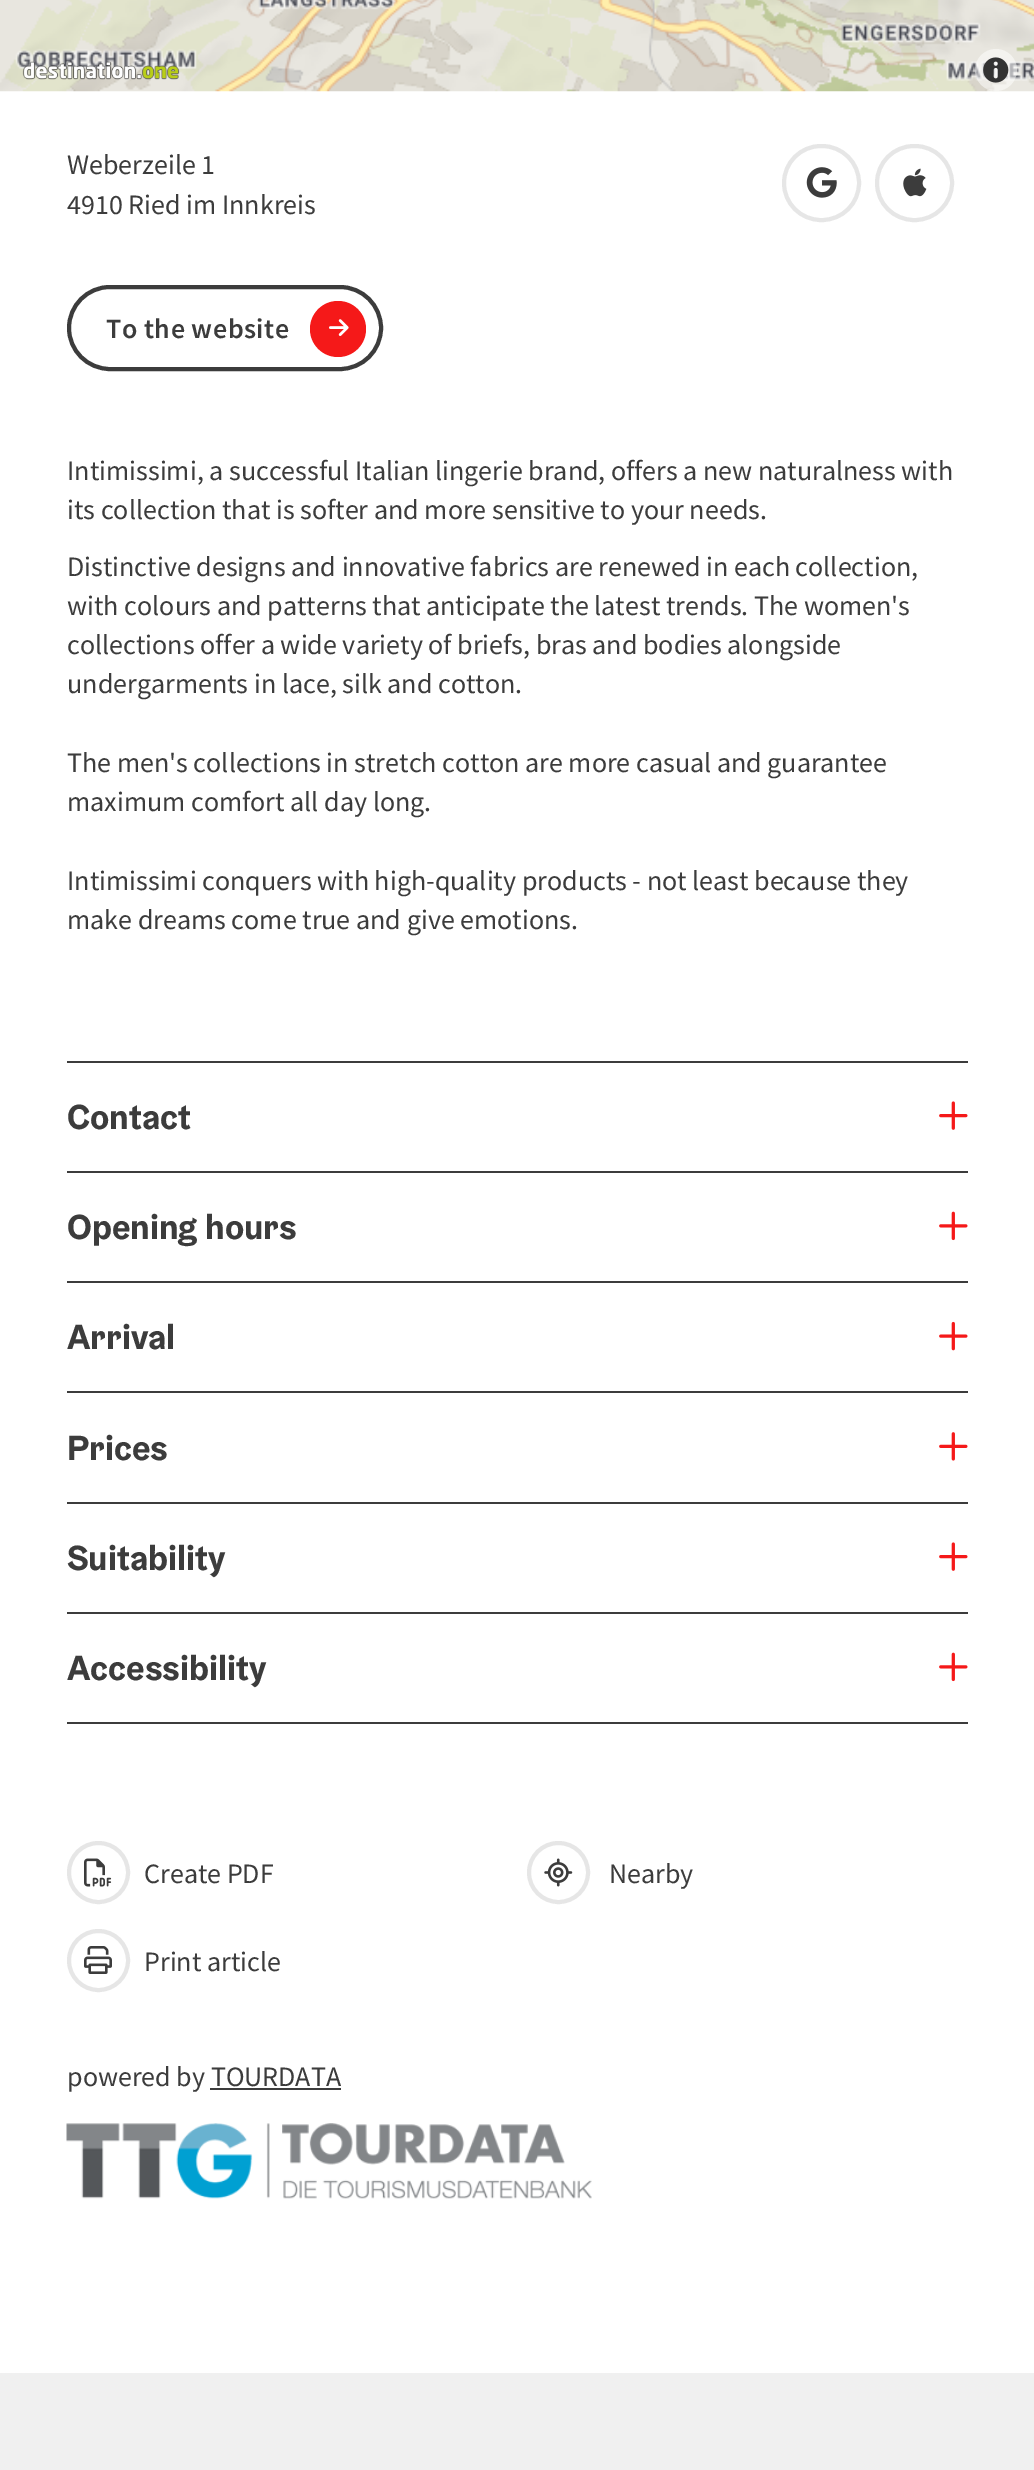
%!PS
<< /PageSize [1034 2470] /PageUsesTransparency true >> setpagedevice
/rgb { dup -16 bitshift 255 div exch dup -8 bitshift 255 and 255 div exch 255 and 255 div setrgbcolor } def
/font { [ exch dup neg 0 0 3 -1 roll 0 0 ] selectfont } def
/text { moveto show } def
/alpha { dup .setfillconstantalpha .setstrokeconstantalpha } def
/circle { newpath 0 360 arc closepath } def
/roundrect { 5 dict begin { /r /h /w /y /x } { exch def } forall
  x r add y moveto x w add y 2 copy h add r arct x w add y h add x 1 index r arct
  x y h add x y r arct x y 2 copy exch w add exch r arct closepath end } def
/picture { 5 dict begin { /h /w /y /x /name } { exch def } forall
  gsave x y translate w h scale
  w h 8 [w 0 0 h 0 0] name (r) file false 3 colorimage grestore end } def
0 .pushpdf14devicefilter
0 2470 translate 1 -1 scale
4 setmiterlimit
/s1 { /SourceSansPro-Regular 28 font 16#3C3C3C rgb } def
/s2 { /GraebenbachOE-Bold 35 font 16#3C3C3C rgb } def
16#FFFFFF rgb
0 0 1034 2470 rectfill
(pic1.raw) 0 0 1034 92 picture
(pic2.raw) 22 61 158 19 picture
0.5 alpha
996 70 21 circle fill
1 alpha
(pic3.raw) 983 57 26 26 picture
s1
(Weberzeile 1) 67 174 text
(4910 Ried im Innkreis) 67 214 text
16#E6E6E6 rgb
4 setlinewidth
784 146 75 74 37 roundrect stroke
(pic4.raw) 806 167 31 31 picture
877 146 75 74 37 roundrect stroke
(pic5.raw) 903 168 24 29 picture
16#3C3C3C rgb
69 287 312 82 41 roundrect stroke
/SourceSansPro-SemiBold 28 font
106 338 moveto 0.5 0 (To the website) ashow
16#F51919 rgb
338 329 28 circle fill
(pic6.raw) 329 319 20 17 picture
s1
(Intimissimi, a successful Italian lingerie brand, offers a new naturalness with) 67 480 text
(its collection that is softer and more sensitive to your needs.) 67 519 text
(Distinctive designs and innovative fabrics are renewed in each collection,) 67 576 text
(with colours and patterns that anticipate the latest trends. The women's) 67 615 text
(collections offer a wide variety of briefs, bras and bodies alongside) 67 654 text
(undergarments in lace, silk and cotton.) 67 693 text
(The men's collections in stretch cotton are more casual and guarantee) 67 772 text
(maximum comfort all day long.) 67 811 text
(Intimissimi conquers with high-quality products - not least because they) 67 890 text
(make dreams come true and give emotions.) 67 929 text
67 1061 901 2 rectfill
67 1171 901 2 rectfill
s2
(Contact) 67 1129 text
(pic7.raw) 939 1101 29 29 picture
67 1281 901 2 rectfill
(Opening hours) 67 1239 text
(pic8.raw) 939 1211 29 30 picture
67 1391 901 2 rectfill
(Arrival) 67 1349 text
(pic9.raw) 939 1321 29 30 picture
67 1502 901 2 rectfill
(Prices) 67 1460 text
(pic10.raw) 939 1432 29 29 picture
67 1612 901 2 rectfill
(Suitability) 67 1570 text
(pic7.raw) 939 1542 29 29 picture
67 1722 901 2 rectfill
(Accessibility) 67 1680 text
(pic8.raw) 939 1652 29 30 picture
16#E6E6E6 rgb
98.5 1872.5 29.5 circle stroke
(pic11.raw) 84 1858 28 29 picture
s1
(Create PDF) 144 1883 text
16#E6E6E6 rgb
558.5 1872.5 29.5 circle stroke
(pic12.raw) 544 1858 29 29 picture
s1
(Nearby) 609 1883 text
16#E6E6E6 rgb
98.5 1960.5 29.5 circle stroke
(pic13.raw) 84 1946 28 28 picture
s1
(Print article) 144 1971 text
(powered by TOURDATA) 67 2086 text
210 2088 131 2 rectfill
(pic14.raw) 66 2123 526 76 picture
16#F0F0F0 rgb
0 2373 1034 97 rectfill
.poppdf14devicefilter showpage
